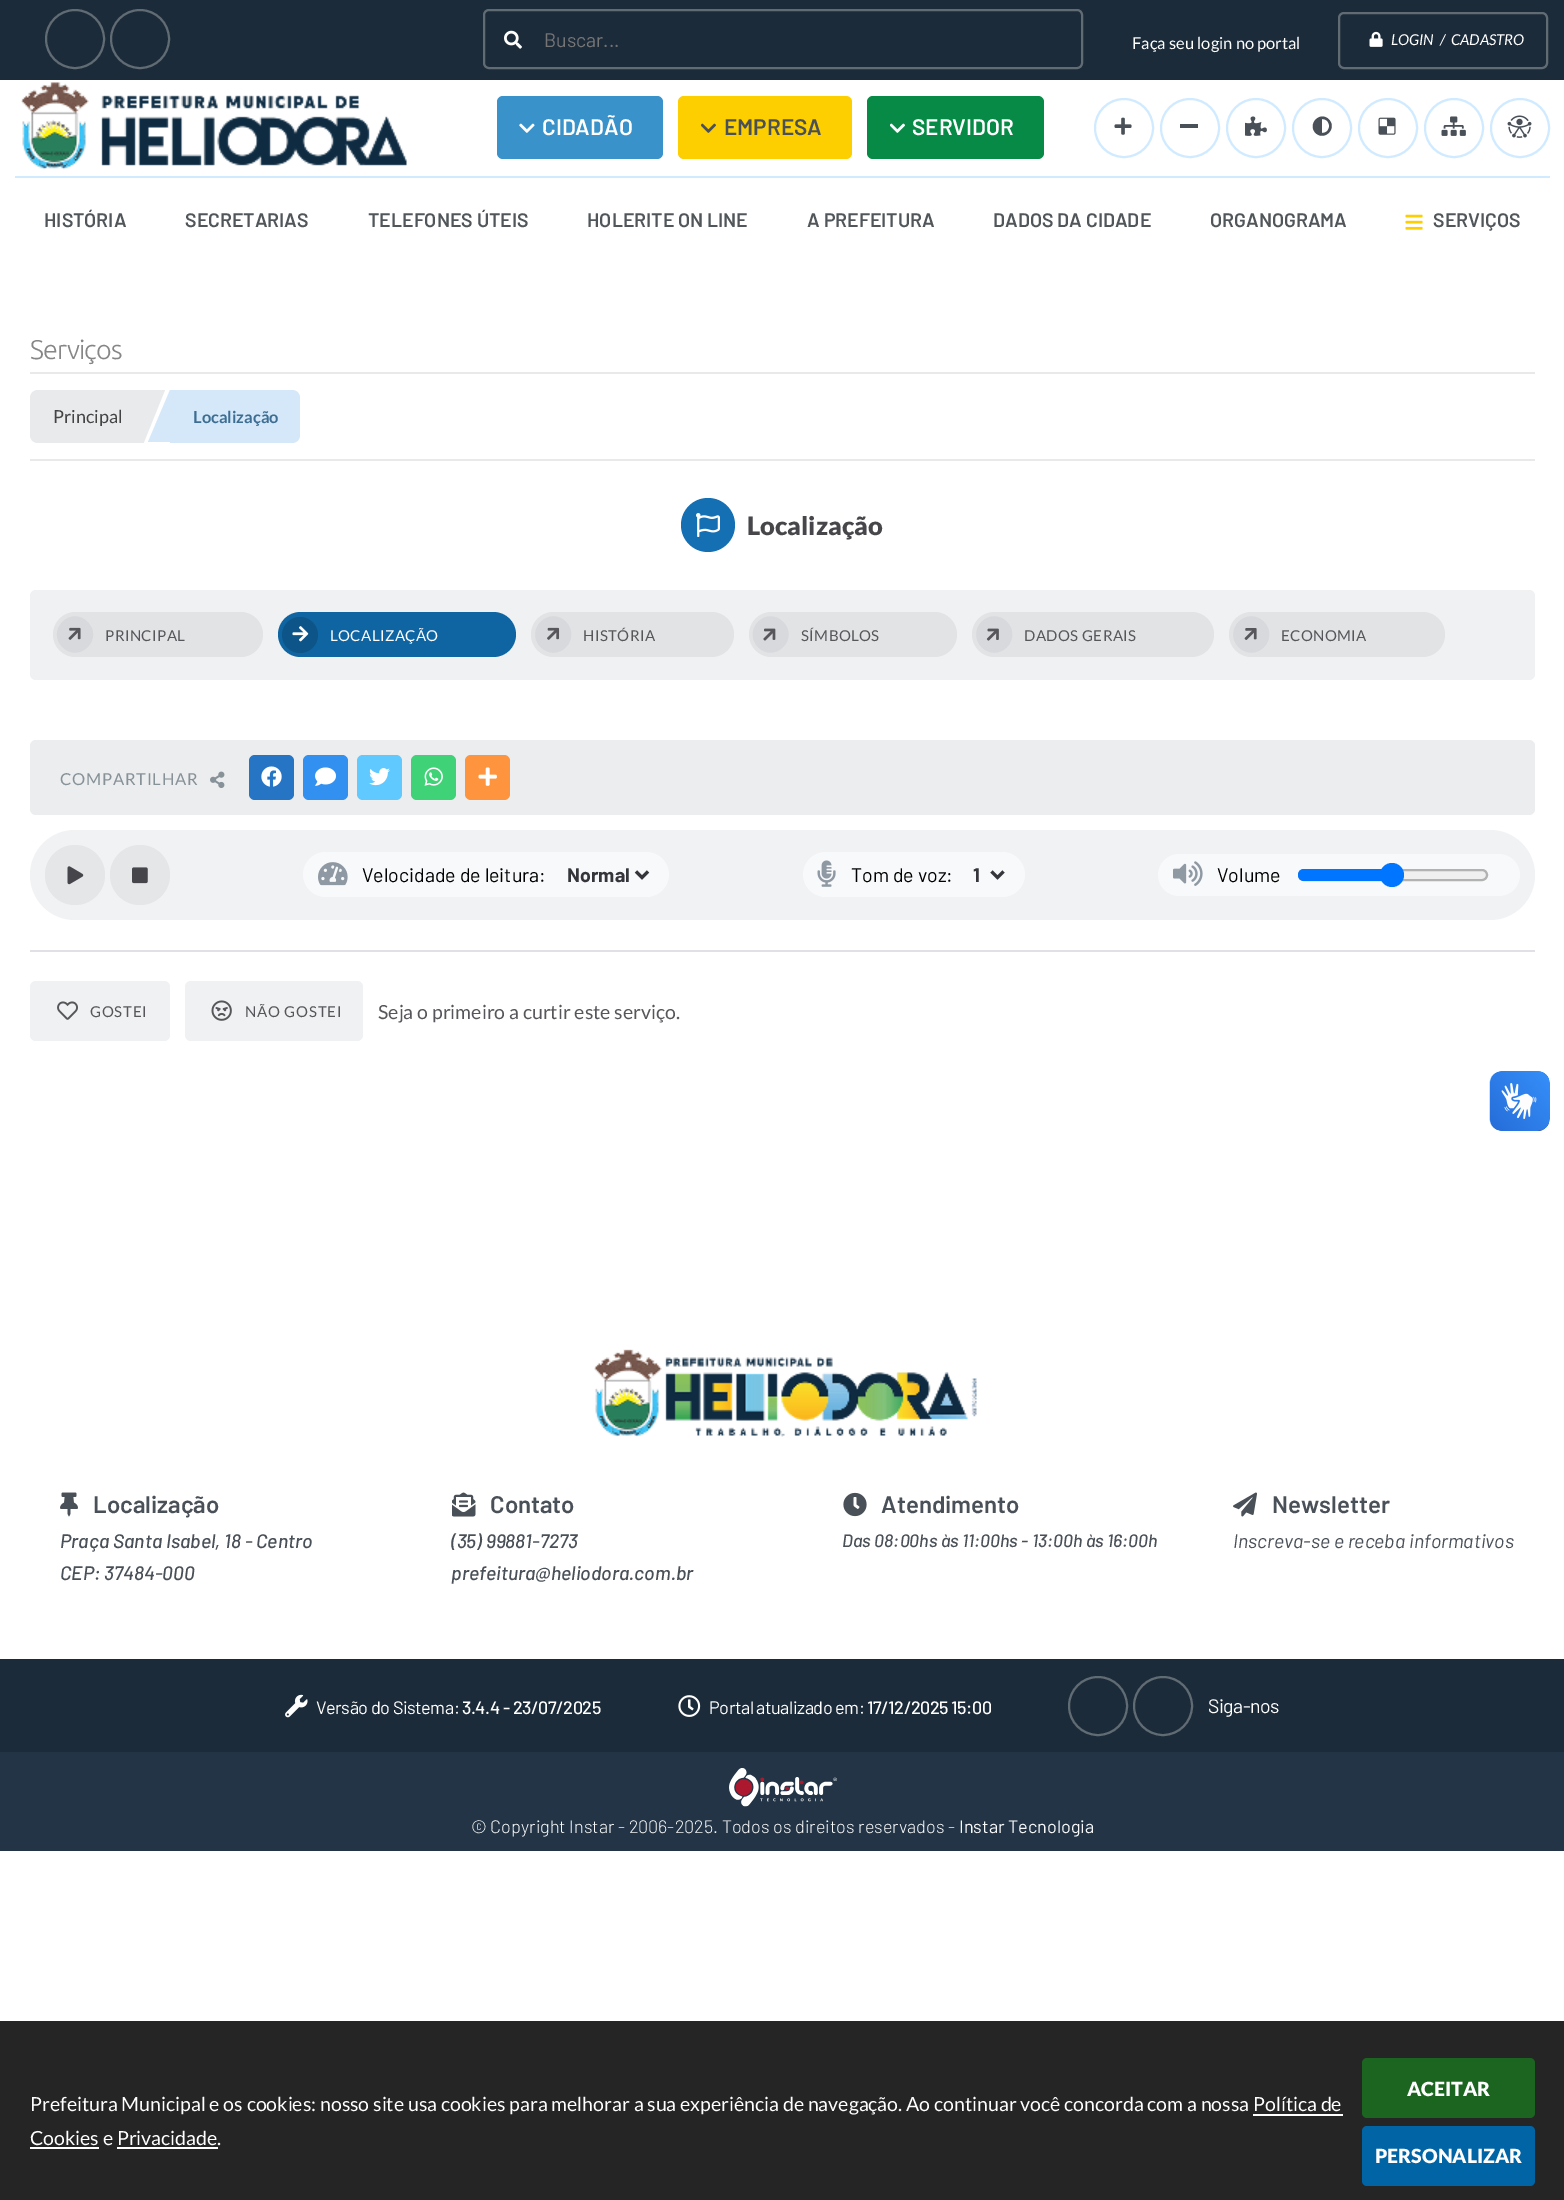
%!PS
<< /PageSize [1564 2200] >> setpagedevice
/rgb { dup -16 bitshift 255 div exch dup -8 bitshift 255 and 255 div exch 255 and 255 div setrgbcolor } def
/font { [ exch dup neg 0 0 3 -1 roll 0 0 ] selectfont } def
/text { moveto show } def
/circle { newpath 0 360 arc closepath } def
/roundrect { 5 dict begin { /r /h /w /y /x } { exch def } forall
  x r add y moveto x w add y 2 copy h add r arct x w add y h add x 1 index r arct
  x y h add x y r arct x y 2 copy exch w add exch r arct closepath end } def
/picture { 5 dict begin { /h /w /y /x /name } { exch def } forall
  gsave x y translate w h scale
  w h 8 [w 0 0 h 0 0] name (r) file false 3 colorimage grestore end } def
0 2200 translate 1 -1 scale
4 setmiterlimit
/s1 { /Barlow-Regular 19.5 font 16#757575 rgb } def
/s2 { /Barlow-SemiBold 22.5 font 16#FFFFFF rgb } def
/s3 { /Barlow-SemiBold 22.5 font 16#495057 rgb } def
/s4 { /Barlow-SemiBold 19.5 font 16#505659 rgb } def
/s5 { /Lato-Regular 16.5 font 16#FFFFFF rgb } def
/s6 { /Lato-Italic 15 font 16#FFFFFF rgb } def
/s7 { /Lato-Regular 19.5 font 16#FFFFFF rgb } def
/s8 { /Lato-Black 19.5 font 16#FFFFFF rgb } def
/s9 { /Lato-Regular 18 font 16#444444 rgb } def
/s10 { /Lato-Bold 16.5 font 16#3D6D92 rgb } def
/s11 { /Lato-Black 25.5 font 16#47474B rgb } def
/s12 { /Barlow-Regular 19.5 font 16#000000 rgb } def
/s13 { /Barlow-Bold 19.5 font 16#35353B rgb } def
/s14 { /Lato-Regular 19.5 font 16#56565B rgb } def
/s15 { /Barlow-SemiBold 24 font 16#495057 rgb } def
/s16 { /Barlow-MediumItalic 19.5 font 16#495057 rgb } def
/s17 { /Barlow-MediumItalic 18 font 16#495057 rgb } def
/s18 { /Barlow-Italic 19.5 font 16#495057 rgb } def
/s19 { /Barlow-Light 18 font 16#F8F9FA rgb } def
/s20 { /Barlow-Regular 18 font 16#F8F9FA rgb } def
16#FFFFFF rgb
0 0 1564 2200 rectfill
16#1C2B39 rgb
0 0 1564 80 rectfill
16#606B74 rgb
2 setlinewidth
75 39 29 circle stroke
140 39 29 circle stroke
484 10 598 58 5 roundrect stroke
(pic1.raw) 504 30 18 19 picture
s1
(Buscar...) 544 47 text
(pic2.raw) 21 82 386 88 picture
16#3992C9 rgb
497 96 166 63 6 roundrect fill
(pic3.raw) 519 123 16 10 picture
s2
(CIDADÃO) 542 135 text
16#FDCF00 rgb
678 96 174 63 6 roundrect fill
(pic4.raw) 701 123 15 10 picture
s3
(EMPRESA) 724 135 text
16#088A47 rgb
867 96 177 63 6 roundrect fill
(pic5.raw) 890 123 15 10 picture
s2
(SERVIDOR) 912 135 text
16#D0EBFF rgb
1124 128 29 circle stroke
(pic6.raw) 1114 117 18 18 picture
1190 128 29 circle stroke
16#495057 rgb
1180 124 18 4 rectfill
16#D0EBFF rgb
1256 128 29 circle stroke
(pic7.raw) 1245 116 22 20 picture
1322 128 29 circle stroke
16#495057 rgb
1315.5 133 moveto 1307 124 1320 110.5 1329 119.5 curveto 1337.5 128.5 1324.5 141.5 1315.5 133 curveto closepath 1322 133 moveto 1331.5 133 1331.5 119 1322 119 curveto closepath fill
16#D0EBFF rgb
1388 128 29 circle stroke
(pic8.raw) 1378 117 18 18 picture
1454 128 29 circle stroke
(pic9.raw) 1441 116 25 20 picture
1520 128 29 circle stroke
(pic10.raw) 1507 115 25 23 picture
15 176 1535 2 rectfill
s4
(HISTÓRIA) 44 227 text
(SECRETARIAS) 185 227 text
(TELEFONES ÚTEIS) 368 227 text
(HOLERITE ON LINE) 587 227 text
(A PREFEITURA) 807 227 text
(DADOS DA CIDADE) 993 227 text
(ORGANOGRAMA) 1210 227 text
(pic11.raw) 1405 214 18 16 picture
(SERVIÇOS) 1433 227 text
s5
(Faça seu login no portal) 1132 49 text
16#606B74 rgb
1339 13 208 55 5 roundrect stroke
(pic12.raw) 1369 31 14 16 picture
s6
(LOGIN  /  CADASTRO) 1391 45 text
(pic13.raw) 1489 1071 61 60 picture
(pic14.raw) 1490 1071 60 60 picture
16#252525 rgb
0 2021 1564 179 rectfill
s7
(Prefeitura Municipal e os cookies: nosso site usa cookies para melhorar a sua experiência de navegação. Ao continuar você concorda com a nossa Política de) 30 2111 text
(Cookies e Privacidade.) 30 2145 text
1253 2114 90 2 rectfill
30 2147 69 2 rectfill
117 2147 101 2 rectfill
16#1B6520 rgb
1362 2058 173 60 5 roundrect fill
s8
(ACEITAR) 1407 2096 text
16#0164A4 rgb
1362 2126 173 60 5 roundrect fill
s8
(PERSONALIZAR) 1375 2163 text
/Ubuntu-Light 27 font
16#868686 rgb
30 359 moveto -0.75 0 (Serviços) ashow
16#E9E9E9 rgb
30 372 1505 2 rectfill
30 459 1505 2 rectfill
16#E9EAEC rgb
38 390 moveto 144 390 lineto 144 443 lineto 38 443 lineto 33.5 443 30 439.5 30 435 curveto 30 398 lineto 30 393.5 33.5 390 38 390 curveto closepath fill
s9
(Principal) 53 423 text
16#E9EAEC rgb
144 390 moveto 165 390 lineto 144 442 lineto closepath fill
16#D4E8F9 rgb
170 390 moveto 292 390 lineto 296.5 390 300 393.5 300 398 curveto 300 435 lineto 300 439.5 296.5 443 292 443 curveto 170 443 lineto closepath fill
170 442 moveto 148 442 lineto 170 390 lineto closepath fill
s10
(Localização) 193 423 text
16#1470B3 rgb
708 525 27 circle fill
(pic15.raw) 696 513 24 24 picture
s11
(Localização) 747 535 text
16#F0F1F2 rgb
30 590 1505 90 6 roundrect fill
16#E1E3E5 rgb
53 612 210 45 22.5 roundrect fill
16#D7D9DC rgb
62.5 622 moveto 69.5 614.5 80.5 614.5 87.5 622 curveto 95 629 95 640 87.5 647 curveto 80.5 654.5 69.5 654.5 62.5 647 curveto 55 640 55 629 62.5 622 curveto closepath fill
(pic16.raw) 68 627 13 13 picture
/Lato-Regular 15 font
16#56565B rgb
105 641 moveto 0.4 0 (PRINCIPAL) ashow
16#0F65A2 rgb
278 612 238 45 22.5 roundrect fill
16#0D5588 rgb
300 635 18 circle fill
(pic17.raw) 292 626 17 16 picture
16#FFFFFF rgb
330 641 moveto 0.4 0 (LOCALIZAÇÃO) ashow
16#E1E3E5 rgb
531 612 203 45 22.5 roundrect fill
16#D7D9DC rgb
540.5 622 moveto 548 614.5 559 614.5 566 622 curveto 573 629 573 640 566 647 curveto 559 654.5 548 654.5 540.5 647 curveto 533.5 640 533.5 629 540.5 622 curveto closepath fill
(pic18.raw) 547 627 13 13 picture
16#56565B rgb
583 641 moveto 0.4 0 (HISTÓRIA) ashow
16#E1E3E5 rgb
749 612 208 45 22.5 roundrect fill
16#D7D9DC rgb
758 622 moveto 765 614.5 776 614.5 783 622 curveto 790.5 629 790.5 640 783 647 curveto 776 654.5 765 654.5 758 647 curveto 751 640 751 629 758 622 curveto closepath fill
(pic19.raw) 763 628 13 13 picture
16#56565B rgb
801 641 moveto 0.4 0 (SÍMBOLOS) ashow
16#E1E3E5 rgb
972 612 242 45 22.5 roundrect fill
16#D7D9DC rgb
981.5 622 moveto 988.5 614.5 1000 614.5 1007 622 curveto 1014 629 1014 640 1007 647 curveto 1000 654.5 988.5 654.5 981.5 647 curveto 974.5 640 974.5 629 981.5 622 curveto closepath fill
(pic20.raw) 986 628 13 13 picture
16#56565B rgb
1024 641 moveto 0.4 0 (DADOS GERAIS) ashow
16#E1E3E5 rgb
1229 612 216 45 22.5 roundrect fill
16#D7D9DC rgb
1238.5 622 moveto 1245.5 614.5 1257 614.5 1264 622 curveto 1271 629 1271 640 1264 647 curveto 1257 654.5 1245.5 654.5 1238.5 647 curveto 1231.5 640 1231.5 629 1238.5 622 curveto closepath fill
(pic21.raw) 1244 628 13 12 picture
16#56565B rgb
1281 641 moveto 0.4 0 (ECONOMIA) ashow
16#EBEDEE rgb
30 740 1505 75 6 roundrect fill
/Lato-Regular 16.5 font
16#869198 rgb
60 785 moveto 0.75 0 (COMPARTILHAR) ashow
(pic22.raw) 210 771 15 17 picture
16#2675C5 rgb
249 755 45 45 6 roundrect fill
(pic23.raw) 261 766 21 21 picture
16#3290F0 rgb
303 755 45 45 6 roundrect fill
(pic24.raw) 315 767 21 19 picture
16#60C9FF rgb
357 755 45 45 6 roundrect fill
(pic25.raw) 369 768 21 18 picture
16#40D277 rgb
411 755 45 45 6 roundrect fill
(pic26.raw) 424 767 19 19 picture
16#FF943E rgb
465 755 45 45 6 roundrect fill
(pic27.raw) 478 767 19 19 picture
16#F0F2F4 rgb
30 830 1505 90 45 roundrect fill
16#E4E6E8 rgb
75 875 30 circle fill
(pic28.raw) 67 866 17 19 picture
140 875 30 circle fill
(pic29.raw) 132 867 16 17 picture
16#F8F9FA rgb
303 852 366 45 22.5 roundrect fill
(pic30.raw) 318 862 30 24 picture
s12
(Velocidade de leitura:) 362 882 text
16#35353B rgb
3 setlinewidth
636 871.5 moveto 642 877.5 lineto 648 871.5 lineto stroke
s13
(Normal) 567 882 text
16#F8F9FA rgb
803 852 222 45 22.5 roundrect fill
(pic31.raw) 817 860 19 27 picture
s12
(Tom de voz:) 851 882 text
16#35353B rgb
991.5 871.5 moveto 997.5 877.5 lineto 1003.5 871.5 lineto stroke
s13
(1) 973 882 text
16#F8F9FA rgb
1158 854 362 42 21 roundrect fill
(pic32.raw) 1173 861 30 25 picture
s12
(Volume) 1217 882 text
16#EFEFEF rgb
1299 870 188 10 5 roundrect gsave fill grestore
16#B2B2B2 rgb
2 setlinewidth
stroke
16#0075FF rgb
1304 869 moveto 1392 869 lineto 1392 881 lineto 1304 881 lineto 1300.5 881 1298 878.5 1298 875 curveto 1298 871.5 1300.5 869 1304 869 curveto closepath fill
1392 875 12 circle fill
16#DFE1E4 rgb
30 950 1505 2 rectfill
16#F0F1F2 rgb
30 981 140 60 6 roundrect fill
(pic33.raw) 57 1001 21 19 picture
/Lato-Regular 15 font
16#56565B rgb
90 1017 moveto 0.75 0 (GOSTEI) ashow
16#F0F1F2 rgb
185 981 178 60 6 roundrect fill
(pic34.raw) 211 1000 21 21 picture
16#56565B rgb
245 1017 moveto 0.75 0 (NÃO GOSTEI) ashow
s14
(Seja o primeiro a curtir este serviço.) 378 1019 text
(pic35.raw) 594 1349 383 88 picture
(pic36.raw) 60 1492 18 25 picture
s15
(Localização) 93 1513 text
s16
(Praça Santa Isabel, 18 - Centro) 60 1548 text
(CEP: 37484-000) 60 1580 text
(pic37.raw) 452 1492 24 25 picture
s15
(Contato) 490 1513 text
s16
(\(35\) 99881-7273) 451 1548 text
(prefeitura@heliodora.com.br) 451 1580 text
(pic38.raw) 843 1492 24 25 picture
s15
(Atendimento) 881 1513 text
s17
(Das 08:00hs às 11:00hs - 13:00h às 16:00h) 842 1547 text
(pic39.raw) 1233 1492 24 25 picture
s15
(Newsletter) 1272 1513 text
s18
(Inscreva-se e receba informativos) 1233 1548 text
16#1C2B39 rgb
0 1659 1564 93 rectfill
(pic40.raw) 285 1694 23 24 picture
/Barlow-Regular 18 font
16#FFFFFF rgb
316 1714 moveto -0.45 0 (Versão do Sistema:) ashow
/Barlow-Medium 18 font
462 1714 moveto -0.45 0 (3.4.4 - 23/07/2025) ashow
(pic41.raw) 678 1695 23 22 picture
/Barlow-Regular 18 font
709 1714 moveto -0.45 0 (Portal atualizado em:) ashow
/Barlow-Medium 18 font
867 1714 moveto -0.45 0 (17/12/2025 15:00) ashow
16#606B74 rgb
1098 1706 29 circle stroke
1163 1706 29 circle stroke
/Barlow-Regular 19.5 font
16#FFFFFF rgb
1208 1713 moveto -0.45 0 (Siga-nos) ashow
16#223445 rgb
0 1752 1564 99 rectfill
(pic42.raw) 729 1768 108 39 picture
s19
(© Copyright Instar - 2006-2025. Todos os direitos reservados -) 471 1833 text
s20
(Instar Tecnologia) 959 1833 text
showpage
